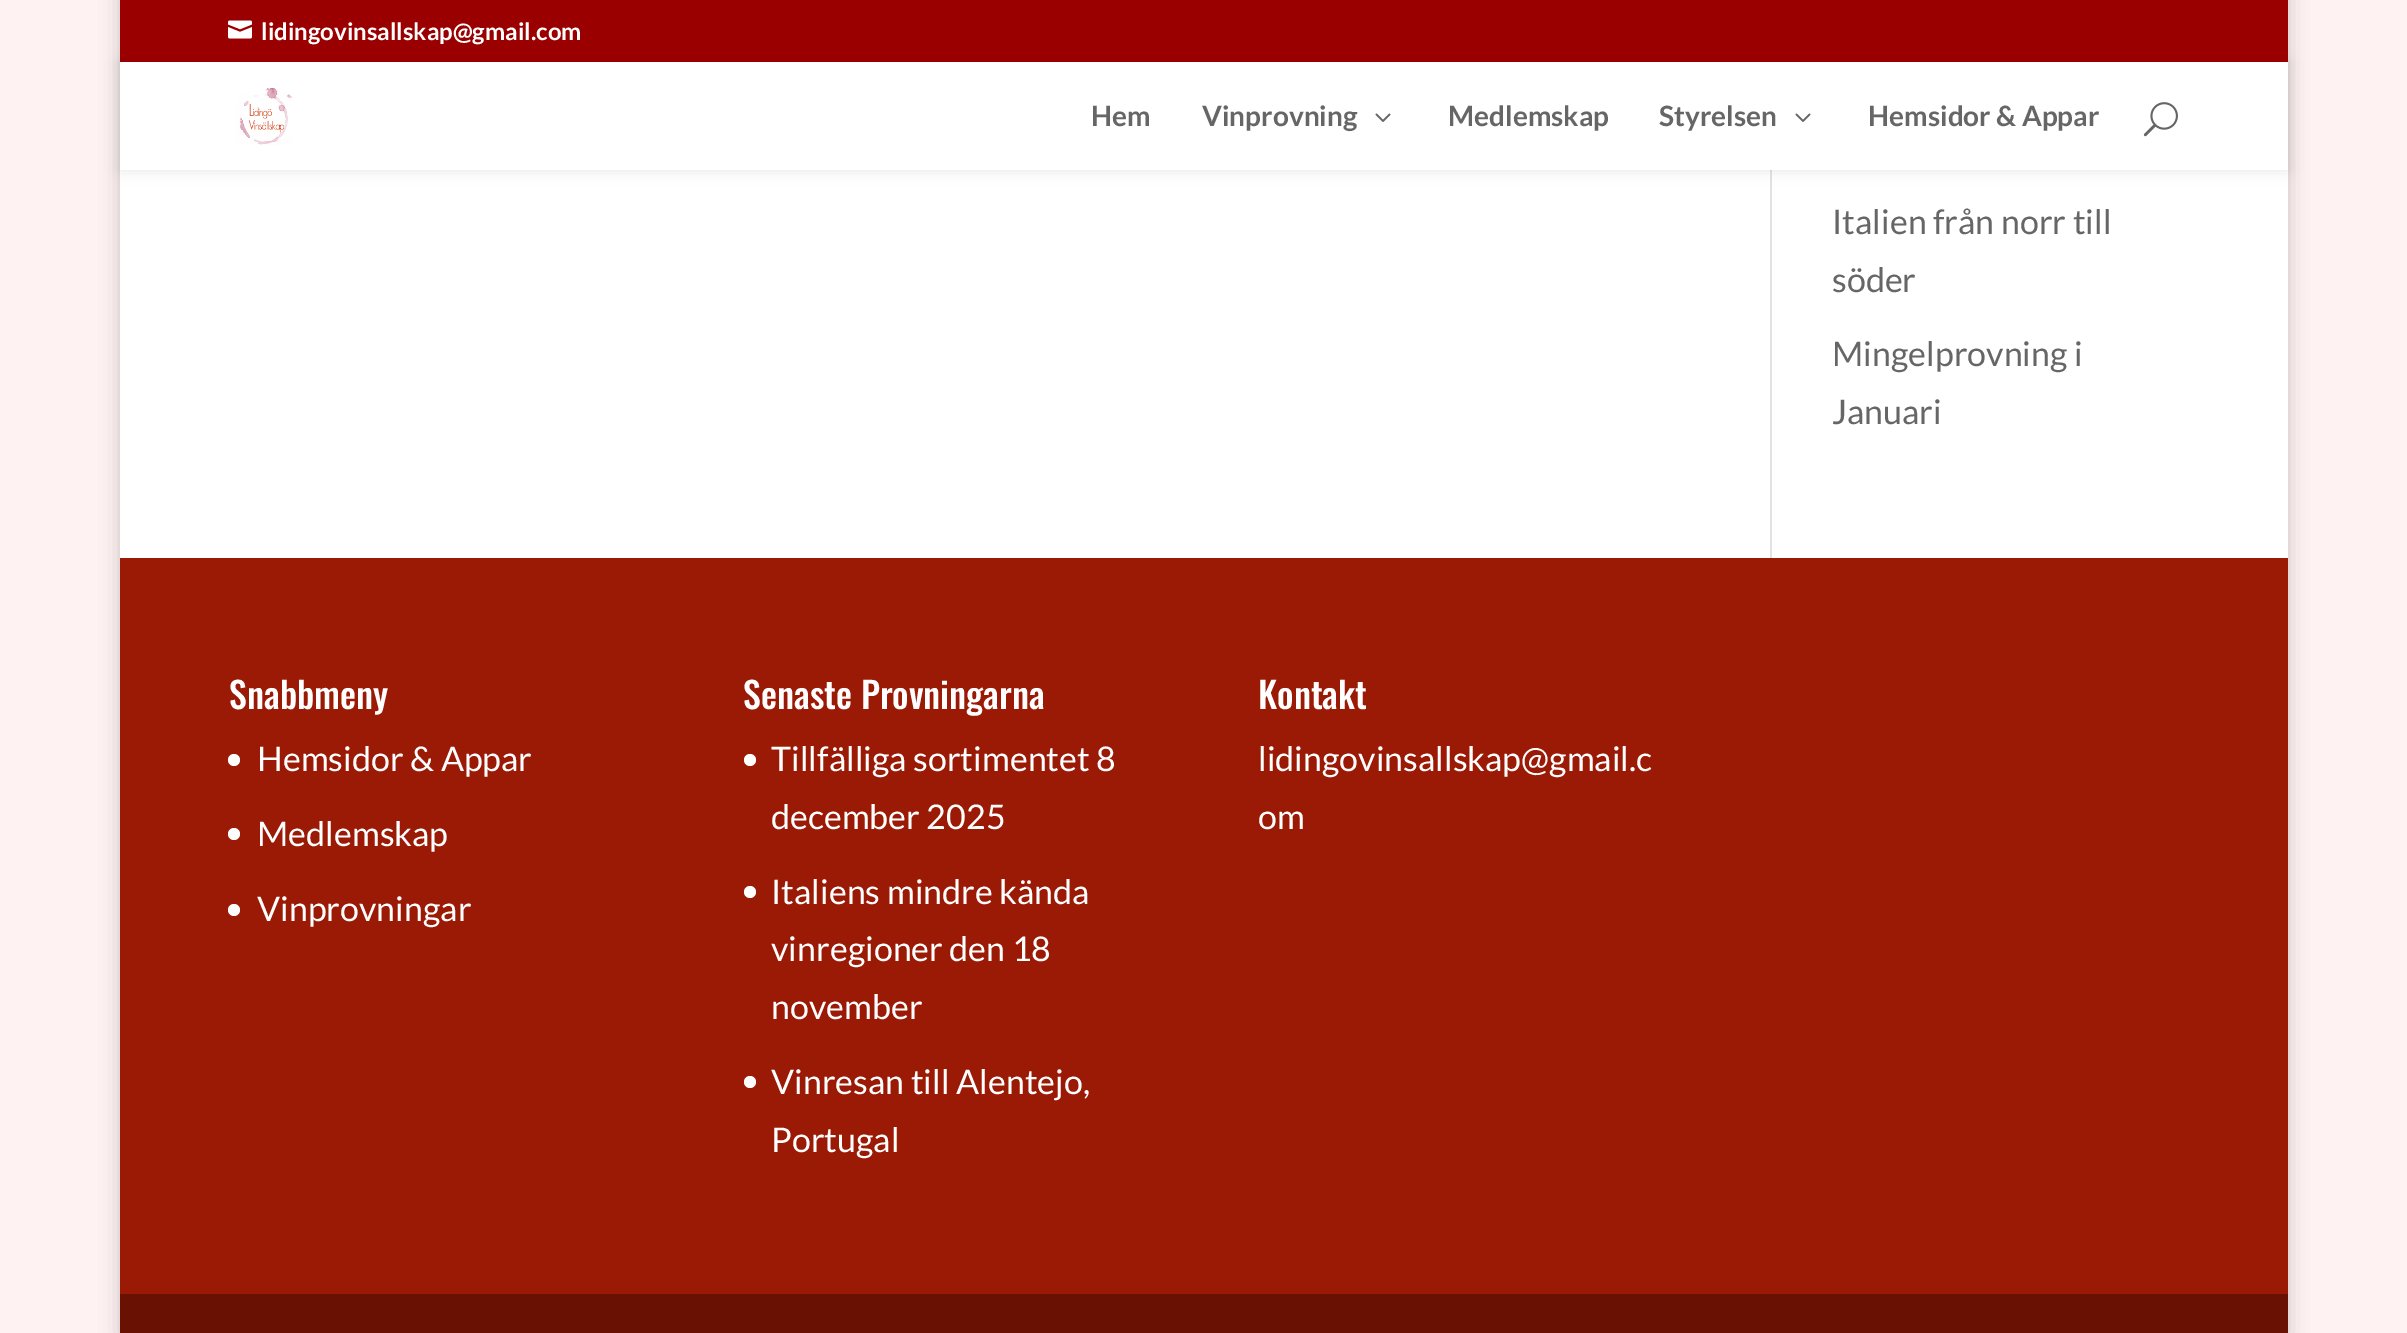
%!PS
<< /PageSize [2407 1333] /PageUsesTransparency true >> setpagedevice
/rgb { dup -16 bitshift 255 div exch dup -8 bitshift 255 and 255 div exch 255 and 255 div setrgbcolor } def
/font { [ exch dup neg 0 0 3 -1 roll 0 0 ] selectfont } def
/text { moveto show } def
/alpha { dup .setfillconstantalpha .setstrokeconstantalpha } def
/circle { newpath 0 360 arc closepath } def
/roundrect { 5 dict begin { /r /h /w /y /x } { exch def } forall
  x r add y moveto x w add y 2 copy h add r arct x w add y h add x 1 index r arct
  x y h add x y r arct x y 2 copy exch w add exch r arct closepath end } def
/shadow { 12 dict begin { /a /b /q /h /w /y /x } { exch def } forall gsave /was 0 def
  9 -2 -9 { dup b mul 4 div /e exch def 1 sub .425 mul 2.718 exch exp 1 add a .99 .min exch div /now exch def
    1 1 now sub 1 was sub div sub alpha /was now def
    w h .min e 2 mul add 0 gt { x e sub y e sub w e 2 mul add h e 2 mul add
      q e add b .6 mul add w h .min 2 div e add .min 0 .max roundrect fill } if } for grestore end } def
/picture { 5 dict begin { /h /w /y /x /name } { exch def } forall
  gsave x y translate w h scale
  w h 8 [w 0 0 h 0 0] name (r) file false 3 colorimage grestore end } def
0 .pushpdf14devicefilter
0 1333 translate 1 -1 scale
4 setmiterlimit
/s1 { /Lato-Bold 24 font 16#FFFFFF rgb } def
/s2 { /Lato-Bold 28 font 16#666666 rgb } def
/s3 { /Lato-Regular 34 font 16#666666 rgb } def
/s4 { /Oswald-Medium 36 font 16#FFFFFF rgb } def
/s5 { /Lato-Regular 34 font 16#FFFFFF rgb } def
16#FFF2F2 rgb
0 0 2407 1333 rectfill
16#000000 rgb
120 -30 2168 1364 0 10 0.2 shadow
16#FFFFFF rgb
120 170 2168 388 rectfill
16#E2E2E2 rgb
1770 170 2 388 rectfill
16#000000 rgb
120 62 2168 108 0 7 0.1 shadow
16#9B0000 rgb
120 0 2168 62 rectfill
(pic1.raw) 228 20 24 19 picture
s1
(lidingovinsallskap@gmail.com) 261 40 text
120 62 2168 108 rectfill
(pic2.raw) 236 88 56 57 picture
s2
(Hem) 1091 126 text
(Vinprovning) 1202 126 text
(pic3.raw) 1375 113 16 9 picture
(Medlemskap) 1448 126 text
(Styrelsen) 1659 126 text
(pic3.raw) 1795 113 16 9 picture
(Hemsidor & Appar) 1868 126 text
(pic4.raw) 2143 102 35 35 picture
s3
(Italien från norr till) 1832 234 text
(söder) 1832 292 text
(Mingelprovning i) 1832 366 text
(Januari) 1832 424 text
16#9B1A06 rgb
120 558 2168 736 rectfill
s4
(Snabbmeny) 229 709 text
234 760 6 circle fill
s5
(Hemsidor & Appar) 257 771 text
234 834 6 circle fill
(Medlemskap) 257 846 text
234 910 6 circle fill
(Vinprovningar) 257 921 text
s4
(Senaste Provningarna) 743 709 text
750 760 6 circle fill
s5
(Tillfälliga sortimentet 8) 771 771 text
(december 2025) 771 829 text
750 892 6 circle fill
(Italiens mindre kända) 771 904 text
(vinregioner den 18) 771 961 text
(november) 771 1019 text
750 1082 6 circle fill
(Vinresan till Alentejo,) 771 1094 text
(Portugal) 771 1152 text
s4
(Kontakt) 1258 709 text
s5
(lidingovinsallskap@gmail.c) 1258 771 text
(om) 1258 829 text
16#691204 rgb
120 1294 2168 39 rectfill
.poppdf14devicefilter showpage
